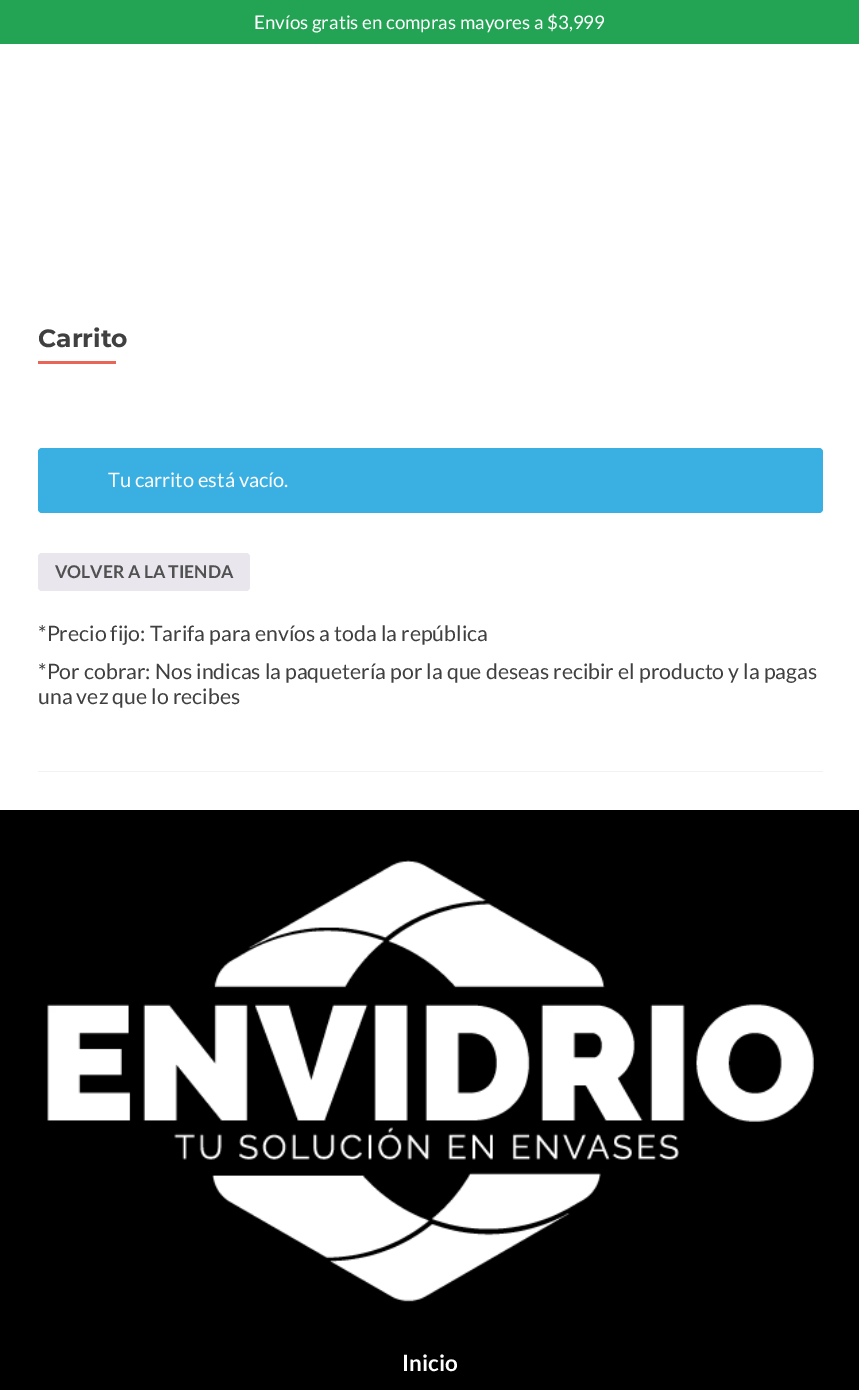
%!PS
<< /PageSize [859 1390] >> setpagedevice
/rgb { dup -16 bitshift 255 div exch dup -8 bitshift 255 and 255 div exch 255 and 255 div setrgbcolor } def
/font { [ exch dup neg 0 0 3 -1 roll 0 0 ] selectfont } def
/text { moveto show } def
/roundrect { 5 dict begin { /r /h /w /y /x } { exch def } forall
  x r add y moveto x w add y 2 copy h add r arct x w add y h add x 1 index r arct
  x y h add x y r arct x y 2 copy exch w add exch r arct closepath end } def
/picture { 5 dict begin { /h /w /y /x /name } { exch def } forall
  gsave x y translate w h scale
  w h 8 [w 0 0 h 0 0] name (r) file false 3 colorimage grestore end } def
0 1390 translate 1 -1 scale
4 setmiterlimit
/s1 { /Lato-Regular 18.75 font 16#FFFFFF rgb } def
/s2 { /Montserrat-Bold 25 font 16#404040 rgb } def
/s3 { /Lato-Regular 20 font 16#FFFFFF rgb } def
/s4 { /Lato-Bold 17.5 font 16#515151 rgb } def
/s5 { /Lato-Regular 21.25 font 16#404040 rgb } def
/s6 { /Lato-Bold 22.5 font 16#FFFFFF rgb } def
16#FFFFFF rgb
0 0 859 1390 rectfill
16#23A455 rgb
0 0 859 44 rectfill
s1
(Envíos gratis en compras mayores a $3,999) 254 29 text
16#F2F2F2 rgb
38 771 785 1 rectfill
s2
(Carrito) 38 347 text
16#E96656 rgb
38 361 78 3 rectfill
16#3AB0E2 rgb
38 448 785 65 4 roundrect fill
s3
(Tu carrito está vacío.) 108 487 text
16#E9E6ED rgb
38 553 212 38 4 roundrect fill
s4
(VOLVER A LA TIENDA) 55 578 text
s5
(*Precio fijo: Tarifa para envíos a toda la república) 38 641 text
(*Por cobrar: Nos indicas la paquetería por la que deseas recibir el producto y la pagas) 38 679 text
(una vez que lo recibes) 38 704 text
16#000000 rgb
0 810 859 580 rectfill
(pic1.raw) 47 860 767 442 picture
s6
(Inicio) 402 1371 text
showpage
